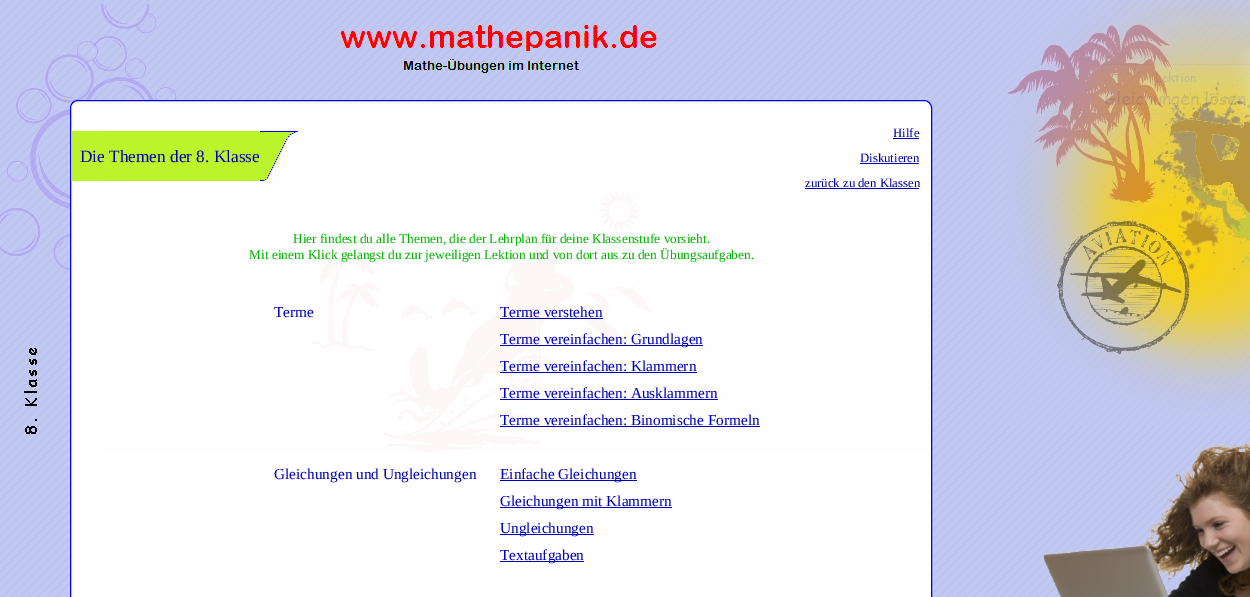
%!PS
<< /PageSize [1250 597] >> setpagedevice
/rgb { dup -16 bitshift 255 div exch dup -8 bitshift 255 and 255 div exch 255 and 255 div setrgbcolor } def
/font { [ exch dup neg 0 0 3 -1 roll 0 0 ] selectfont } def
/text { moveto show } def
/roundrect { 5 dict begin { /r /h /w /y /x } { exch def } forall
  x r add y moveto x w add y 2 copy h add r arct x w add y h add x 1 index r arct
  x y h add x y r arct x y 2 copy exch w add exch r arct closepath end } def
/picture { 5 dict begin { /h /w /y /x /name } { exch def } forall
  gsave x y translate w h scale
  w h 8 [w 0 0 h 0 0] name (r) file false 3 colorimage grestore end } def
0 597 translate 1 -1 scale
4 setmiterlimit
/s1 { /LiberationSerif-Regular 17.25 font 16#0000AA rgb } def
/s2 { /LiberationSerif-Regular 12.75 font 16#0000AA rgb } def
/s3 { /LiberationSerif-Regular 13.35 font 16#00B400 rgb } def
/s4 { /LiberationSerif-Regular 15.3 font 16#0000B4 rgb } def
16#FFFFFF rgb
0 0 1250 597 rectfill
(pic1.raw) 0 0 1250 597 picture
(pic2.raw) 340 25 317 26 picture
(pic3.raw) 403 59 177 14 picture
(pic4.raw) 24 348 13 86 picture
70 100 862 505 8 roundrect fill
(pic5.raw) 70 100 862 353 picture
16#0000EE rgb
70.5 100.5 861 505 7.5 roundrect stroke
16#B9F52A rgb
71 131 189 50 rectfill
s1
(Die Themen der 8. Klasse) 80 162 text
(pic6.raw) 260 131 38 50 picture
s2
(Hilfe) 893 137 text
893 138 26 1 rectfill
(Diskutieren) 860 162 text
860 163 59 1 rectfill
(zurück zu den Klassen) 805 187 text
805 188 114 1 rectfill
s3
(Hier findest du alle Themen, die der Lehrplan für deine Klassenstufe vorsieht.) 293 243 text
(Mit einem Klick gelangst du zur jeweiligen Lektion und von dort aus zu den Übungsaufgaben.) 249 259 text
s4
(Terme) 274 317 text
(Terme verstehen) 500 317 text
500 318 103 1 rectfill
500 345 203 1 rectfill
(Terme vereinfachen: Grundlagen) 500 344 text
(Terme vereinfachen: Klammern) 500 371 text
500 372 197 1 rectfill
(Terme vereinfachen: Ausklammern) 500 398 text
500 399 218 1 rectfill
(Terme vereinfachen: Binomische Formeln) 500 425 text
500 426 260 1 rectfill
(Gleichungen und Ungleichungen) 274 479 text
500 480 137 1 rectfill
(Einfache Gleichungen) 500 479 text
500 507 172 1 rectfill
(Gleichungen mit Klammern) 500 506 text
500 534 94 1 rectfill
(Ungleichungen) 500 533 text
500 561 84 1 rectfill
(Textaufgaben) 500 560 text
showpage
